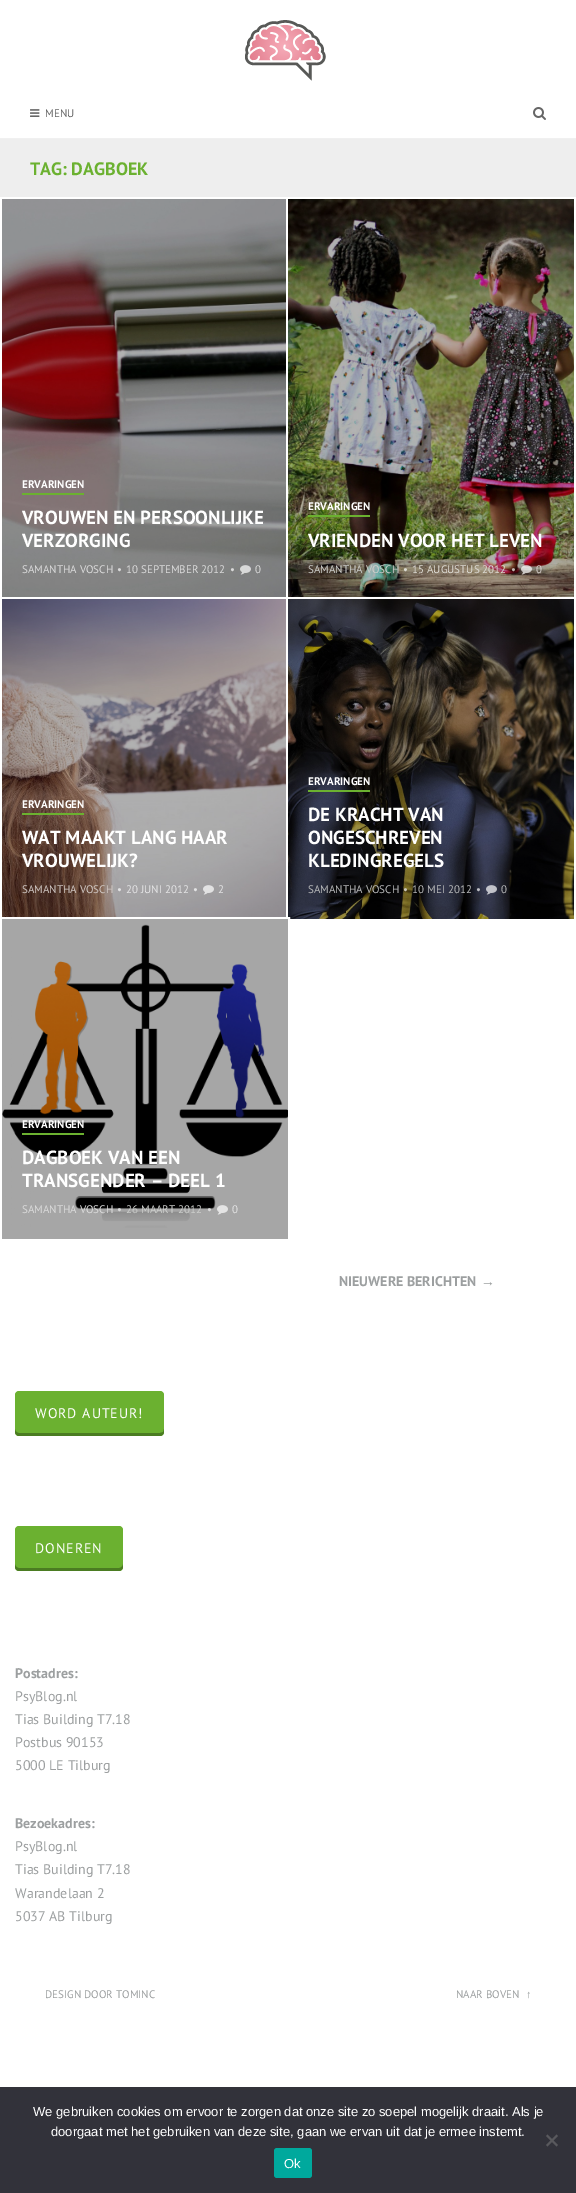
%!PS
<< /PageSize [576 2193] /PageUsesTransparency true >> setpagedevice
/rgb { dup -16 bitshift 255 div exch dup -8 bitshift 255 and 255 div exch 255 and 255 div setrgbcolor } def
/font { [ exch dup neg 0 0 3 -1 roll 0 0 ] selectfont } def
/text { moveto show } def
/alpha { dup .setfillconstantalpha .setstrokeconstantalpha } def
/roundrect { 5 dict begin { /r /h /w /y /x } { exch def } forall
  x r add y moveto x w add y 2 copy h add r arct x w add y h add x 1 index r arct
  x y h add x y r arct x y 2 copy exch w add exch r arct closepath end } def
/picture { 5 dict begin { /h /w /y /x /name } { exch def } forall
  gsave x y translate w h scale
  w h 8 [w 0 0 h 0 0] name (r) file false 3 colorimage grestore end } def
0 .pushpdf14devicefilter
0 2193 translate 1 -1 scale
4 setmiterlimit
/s1 { /PTSans-Regular 11 font 16#666666 rgb } def
/s2 { /PTSans-Bold 18 font 16#6BB130 rgb } def
/s3 { /PTSans-Bold 11 font 16#FFFFFF rgb } def
/s4 { /PTSans-Bold 19 font 16#FFFFFF rgb } def
/s5 { /PTSans-Regular 11 font 16#DADADA rgb } def
/s6 { /PTSans-Regular 11 font 16#CCCECB rgb } def
/s7 { /PTSans-Regular 11 font 16#DCDAD3 rgb } def
/s8 { /PTSans-Regular 11 font 16#C4B8B5 rgb } def
/s9 { /PTSans-Regular 11 font 16#D7D1CE rgb } def
/s10 { /PTSans-Regular 11 font 16#CFC7C3 rgb } def
/s11 { /PTSans-Regular 11 font 16#E3E3E4 rgb } def
/s12 { /PTSans-Regular 11 font 16#B8B9BA rgb } def
/s13 { /PTSans-Regular 11 font 16#CDC9BA rgb } def
/s14 { /PTSans-Regular 11 font 16#BFC0C6 rgb } def
/s15 { /PTSans-Bold 14 font 16#9C9FA0 rgb } def
/s16 { /LiberationSans-Bold 14 font 16#9C9FA0 rgb } def
/s17 { /PTSans-Regular 14 font 16#9C9FA0 rgb } def
/s18 { /PTSans-Regular 11 font 16#9C9FA0 rgb } def
/s19 { /LiberationSans-Regular 11 font 16#9C9FA0 rgb } def
/s20 { /LiberationSans-Regular 13 font 16#FFFFFF rgb } def
16#FFFFFF rgb
0 0 576 2193 rectfill
(pic1.raw) 245 20 81 61 picture
(pic2.raw) 30 109 10 8 picture
s1
(MENU) 45 117 text
(pic3.raw) 533 107 13 13 picture
16#EEEEEE rgb
0 139 576 58 rectfill
16#F0F0F0 rgb
0 138 576 1 rectfill
s2
(TAG: DAGBOEK) 30 175 text
(pic4.raw) 2 199 284 398 picture
22 493 62 2 rectfill
s3
(ERVARINGEN) 22 488 text
s4
(VROUWEN EN PERSOONLIJKE) 22 524 text
(VERZORGING) 22 547 text
s5
(SAMANTHA VOSCH) 22 573 text
(•) 117 573 text
(10 SEPTEMBER 2012) 126 573 text
(•) 230 573 text
(pic5.raw) 240 565 11 10 picture
(0) 255 573 text
(pic6.raw) 288 199 286 398 picture
16#6BB130 rgb
308 515 62 2 rectfill
s3
(ERVARINGEN) 308 510 text
s4
(VRIENDEN VOOR HET LEVEN) 308 547 text
s6
(SAMANTHA VOSCH) 308 573 text
s7
(•) 403 573 text
(15 AUGUSTUS 2012) 412 573 text
s8
(•) 511 573 text
(pic7.raw) 521 565 11 10 picture
s9
(0) 536 573 text
(pic8.raw) 2 599 284 318 picture
16#6BB130 rgb
22 813 62 2 rectfill
s3
(ERVARINGEN) 22 808 text
s4
(WAT MAAKT LANG HAAR) 22 844 text
(VROUWELIJK?) 22 867 text
s10
(SAMANTHA VOSCH) 22 893 text
s11
(•) 117 893 text
(20 JUNI 2012) 126 893 text
(•) 193 893 text
(pic9.raw) 203 885 11 10 picture
(2) 218 893 text
(pic10.raw) 288 599 286 320 picture
16#6BB130 rgb
308 790 62 2 rectfill
s3
(ERVARINGEN) 308 785 text
s4
(DE KRACHT VAN) 308 821 text
(ONGESCHREVEN) 308 844 text
(KLEDINGREGELS) 308 867 text
s12
(SAMANTHA VOSCH) 308 893 text
s13
(•) 403 893 text
s12
(10 MEI 2012) 412 893 text
s14
(•) 476 893 text
(pic11.raw) 486 885 11 10 picture
s12
(0) 501 893 text
16#FFFFFF rgb
2 setlinewidth
1 918 288 322 rectstroke
16#EEEEEE rgb
2 919 286 320 rectfill
(pic12.raw) 2 924 286 304 picture
0.3 alpha
16#000000 rgb
2 919 286 320 rectfill
1 alpha
16#6BB130 rgb
22 1133 62 2 rectfill
s3
(ERVARINGEN) 22 1128 text
s4
(DAGBOEK VAN EEN) 22 1164 text
(TRANSGENDER – DEEL 1) 22 1187 text
s5
(SAMANTHA VOSCH) 22 1213 text
(•) 117 1213 text
s6
(26 MAART 2012) 126 1213 text
s5
(•) 207 1213 text
(pic13.raw) 217 1205 11 10 picture
s11
(0) 232 1213 text
s15
(NIEUWERE BERICHTEN) 339 1286 text
s16
(→) 481 1286 text
16#6BB130 rgb
15 1391 149 45 4 roundrect fill
16#4B7C22 rgb
15 1429 moveto 15 1432 lineto 15 1434 17 1436 19 1436 curveto 160 1436 lineto 162 1436 164 1434 164 1432 curveto 164 1429 lineto 163 1432 lineto 160 1433 lineto 19 1433 lineto 17 1433 15 1431 15 1429 curveto closepath fill
/PTSans-Regular 14 font
16#FFFFFF rgb
35 1418 moveto 1 0 (WORD AUTEUR!) ashow
16#6BB130 rgb
15 1526 108 45 4 roundrect fill
16#4B7C22 rgb
15 1564 moveto 15 1567 lineto 15 1569 17 1571 19 1571 curveto 119 1571 lineto 121 1571 123 1569 123 1567 curveto 123 1564 lineto 123 1566 121 1568 119 1568 curveto 19 1568 lineto 17 1568 15 1566 15 1564 curveto closepath fill
16#FFFFFF rgb
35 1553 moveto 1 0 (DONEREN) ashow
s15
(Postadres:) 15 1678 text
s17
(PsyBlog.nl) 15 1701 text
(Tias Building T7.18) 15 1724 text
(Postbus 90153) 15 1747 text
(5000 LE Tilburg) 15 1770 text
s15
(Bezoekadres:) 15 1828 text
s17
(PsyBlog.nl) 15 1851 text
(Tias Building T7.18) 15 1874 text
(Warandelaan 2) 15 1898 text
(5037 AB Tilburg) 15 1921 text
s18
(DESIGN DOOR TOMINC) 45 1998 text
(NAAR BOVEN) 456 1998 text
s19
(↑) 526 1998 text
16#32323A rgb
0 2087 576 106 rectfill
s20
(We gebruiken cookies om ervoor te zorgen dat onze site zo soepel mogelijk draait. Als je) 33 2116 text
(doorgaat met het gebruiken van deze site, gaan we ervan uit dat je ermee instemt.) 51 2136 text
16#59595D rgb
556.5 2134.5 moveto 558 2136 lineto 547.5 2146.5 lineto 546 2145 lineto closepath fill
546 2136 moveto 547.5 2134.5 lineto 558 2145 lineto 556.5 2146.5 lineto closepath fill
16#00A99D rgb
274 2148 38 30 3 roundrect fill
s20
(Ok) 284 2168 text
.poppdf14devicefilter showpage
